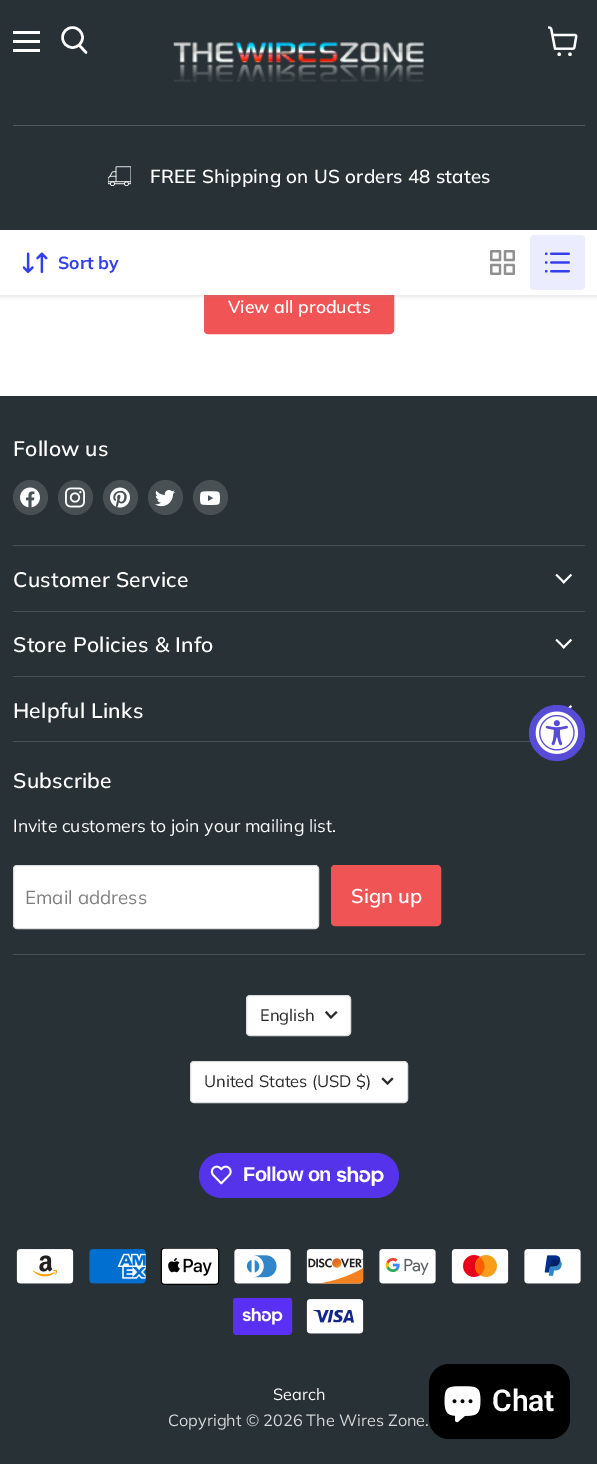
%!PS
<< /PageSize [597 1464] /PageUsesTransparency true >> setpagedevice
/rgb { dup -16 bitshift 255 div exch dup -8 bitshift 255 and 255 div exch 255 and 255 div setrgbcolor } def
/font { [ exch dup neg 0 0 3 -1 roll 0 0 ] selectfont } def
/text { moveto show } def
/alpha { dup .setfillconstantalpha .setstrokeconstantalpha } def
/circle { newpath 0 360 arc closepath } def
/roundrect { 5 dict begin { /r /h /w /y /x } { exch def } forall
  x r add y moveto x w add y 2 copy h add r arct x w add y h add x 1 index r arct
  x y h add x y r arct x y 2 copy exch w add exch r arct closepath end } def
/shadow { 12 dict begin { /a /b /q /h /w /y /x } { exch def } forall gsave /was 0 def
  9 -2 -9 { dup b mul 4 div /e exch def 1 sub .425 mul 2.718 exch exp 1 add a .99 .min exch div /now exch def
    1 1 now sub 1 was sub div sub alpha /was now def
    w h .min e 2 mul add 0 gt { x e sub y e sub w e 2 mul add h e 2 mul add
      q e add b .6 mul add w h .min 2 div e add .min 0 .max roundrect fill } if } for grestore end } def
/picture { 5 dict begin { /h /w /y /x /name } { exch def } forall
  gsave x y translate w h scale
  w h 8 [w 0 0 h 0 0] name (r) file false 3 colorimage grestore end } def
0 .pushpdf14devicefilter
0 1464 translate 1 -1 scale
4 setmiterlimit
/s1 { /Muli-Bold 17.6 font 16#333EED rgb } def
/s2 { /Muli-SemiBold 17.5 font 16#FFFFFF rgb } def
/s3 { /Muli-Regular 17.6 font 16#FFFFFF rgb } def
/s4 { /Muli-Regular 18.75 font 16#7F7F7F rgb } def
/s5 { /Muli-SemiBold 20 font 16#FFFFFF rgb } def
/s6 { /Muli-Regular 16.5 font 16#2A2A2A rgb } def
/s7 { /Muli-Regular 16.25 font 16#FFFFFF rgb } def
/s8 { /Muli-Regular 16.25 font 16#D4D6D7 rgb } def
/s9 { /Roboto-SemiBold 30 font 16#FFFFFF rgb } def
16#FFFFFF rgb
0 0 597 1464 rectfill
16#F15454 rgb
204.5 281.5 189 52 3.5 roundrect gsave fill grestore
stroke
16#808080 rgb
0 231 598 65 0 2.5 0.25 shadow
16#283135 rgb
0 0 597 230 rectfill
16#FFFFFF rgb
13 31 27 3 rectfill
13 40 27 3 rectfill
13 49 27 3 rectfill
2.5 setlinewidth
1 setlinecap
86 52.5 moveto 79.5 45.5 lineto stroke
0 setlinecap
72.5 37.5 10 circle stroke
(pic1.raw) 548 26 30 30 picture
(pic2.raw) 173 42 251 40 picture
16#535A5D rgb
13 125 572 1 rectfill
(pic3.raw) 108 166 23 20 picture
/Muli-SemiBold 18.75 font
16#FFFFFF rgb
150 183 moveto 0.2 0 (FREE Shipping on US orders 48 states) ashow
0 230 597 65 rectfill
(pic4.raw) 23 252 25 22 picture
s1
(Sort by) 58 269 text
(pic5.raw) 490 250 25 25 picture
16#EBECFD rgb
530 235 55 55 4 roundrect fill
(pic6.raw) 545 252 25 21 picture
s2
(View all products) 228 313 text
16#283135 rgb
0 396 597 1068 rectfill
16#485053 rgb
13 545 572 1 rectfill
/Muli-SemiBold 21 font
16#FFFFFF rgb
13 456 moveto 0.25 0 (Follow us) ashow
16#485053 rgb
30.5 497.5 17.5 circle fill
(pic7.raw) 20 487 20 21 picture
75.5 497.5 17.5 circle fill
(pic8.raw) 65 487 20 21 picture
120.5 497.5 17.5 circle fill
(pic9.raw) 110 487 20 21 picture
165.5 497.5 17.5 circle fill
(pic10.raw) 155 490 20 17 picture
210.5 497.5 17.5 circle fill
(pic11.raw) 200 491 20 14 picture
13 611 572 1 rectfill
16#FFFFFF rgb
13 587 moveto 0.25 0 (Customer Service) ashow
(pic12.raw) 555 574 18 10 picture
16#485053 rgb
13 676 572 1 rectfill
16#FFFFFF rgb
13 652 moveto 0.25 0 (Store Policies & Info) ashow
(pic12.raw) 555 639 18 10 picture
16#485053 rgb
13 741 572 1 rectfill
16#FFFFFF rgb
13 718 moveto 0.25 0 (Helpful Links) ashow
(pic13.raw) 556 705 17 4 picture
16#485053 rgb
13 954 572 1 rectfill
16#FFFFFF rgb
13 788 moveto 0.25 0 (Subscribe) ashow
s3
(Invite customers to join your mailing list.) 13 832 text
13.5 865.5 305 63 3.5 roundrect gsave fill grestore
16#DDDDDD rgb
1 setlinewidth
stroke
s4
(Email address) 25 904 text
16#F15454 rgb
331.5 865.5 109 60 3.5 roundrect gsave fill grestore
stroke
s5
(Sign up) 351 903 text
246.5 995.5 104 40 3.5 roundrect gsave fill grestore
16#DDDDDD rgb
stroke
s6
(English) 260 1021 text
2 setlinewidth
2 setlinecap
331 1017.5 moveto 336 1012.5 lineto 331 1017.5 moveto 326.5 1012.5 lineto stroke
16#FFFFFF rgb
190.5 1061.5 217 41 3.5 roundrect gsave fill grestore
16#DDDDDD rgb
1 setlinewidth
0 setlinecap
stroke
s6
(United States \(USD $\)) 204 1087 text
2 setlinewidth
2 setlinecap
387.5 1083.5 moveto 392 1079 lineto 387.5 1083.5 moveto 383 1079 lineto stroke
16#5433EB rgb
199 1153 200 45 22.5 roundrect fill
(pic14.raw) 210 1165 22 20 picture
/LiberationSans-Bold 20 font
16#FFFFFF rgb
243 1181 moveto -0.6 0 (Follow on) ashow
(pic15.raw) 336 1166 48 20 picture
(pic16.raw) 16 1249 58 35 picture
(pic17.raw) 89 1249 57 35 picture
(pic18.raw) 160 1248 60 37 picture
(pic19.raw) 234 1249 57 35 picture
(pic20.raw) 306 1249 58 35 picture
(pic21.raw) 379 1249 57 35 picture
(pic22.raw) 451 1249 58 35 picture
(pic23.raw) 524 1249 57 35 picture
(pic24.raw) 233 1298 60 37 picture
(pic25.raw) 306 1299 58 35 picture
s7
(Search) 273 1400 text
s8
(Copyright © 2026 The Wires Zone.) 168 1426 text
16#574CD5 rgb
557 733 28 circle fill
(pic26.raw) 535 711 44 43 picture
16#000000 rgb
429 1364 141 75 20 roundrect fill
(pic27.raw) 444 1386 37 37 picture
s9
(Chat) 492 1411 text
.poppdf14devicefilter showpage
